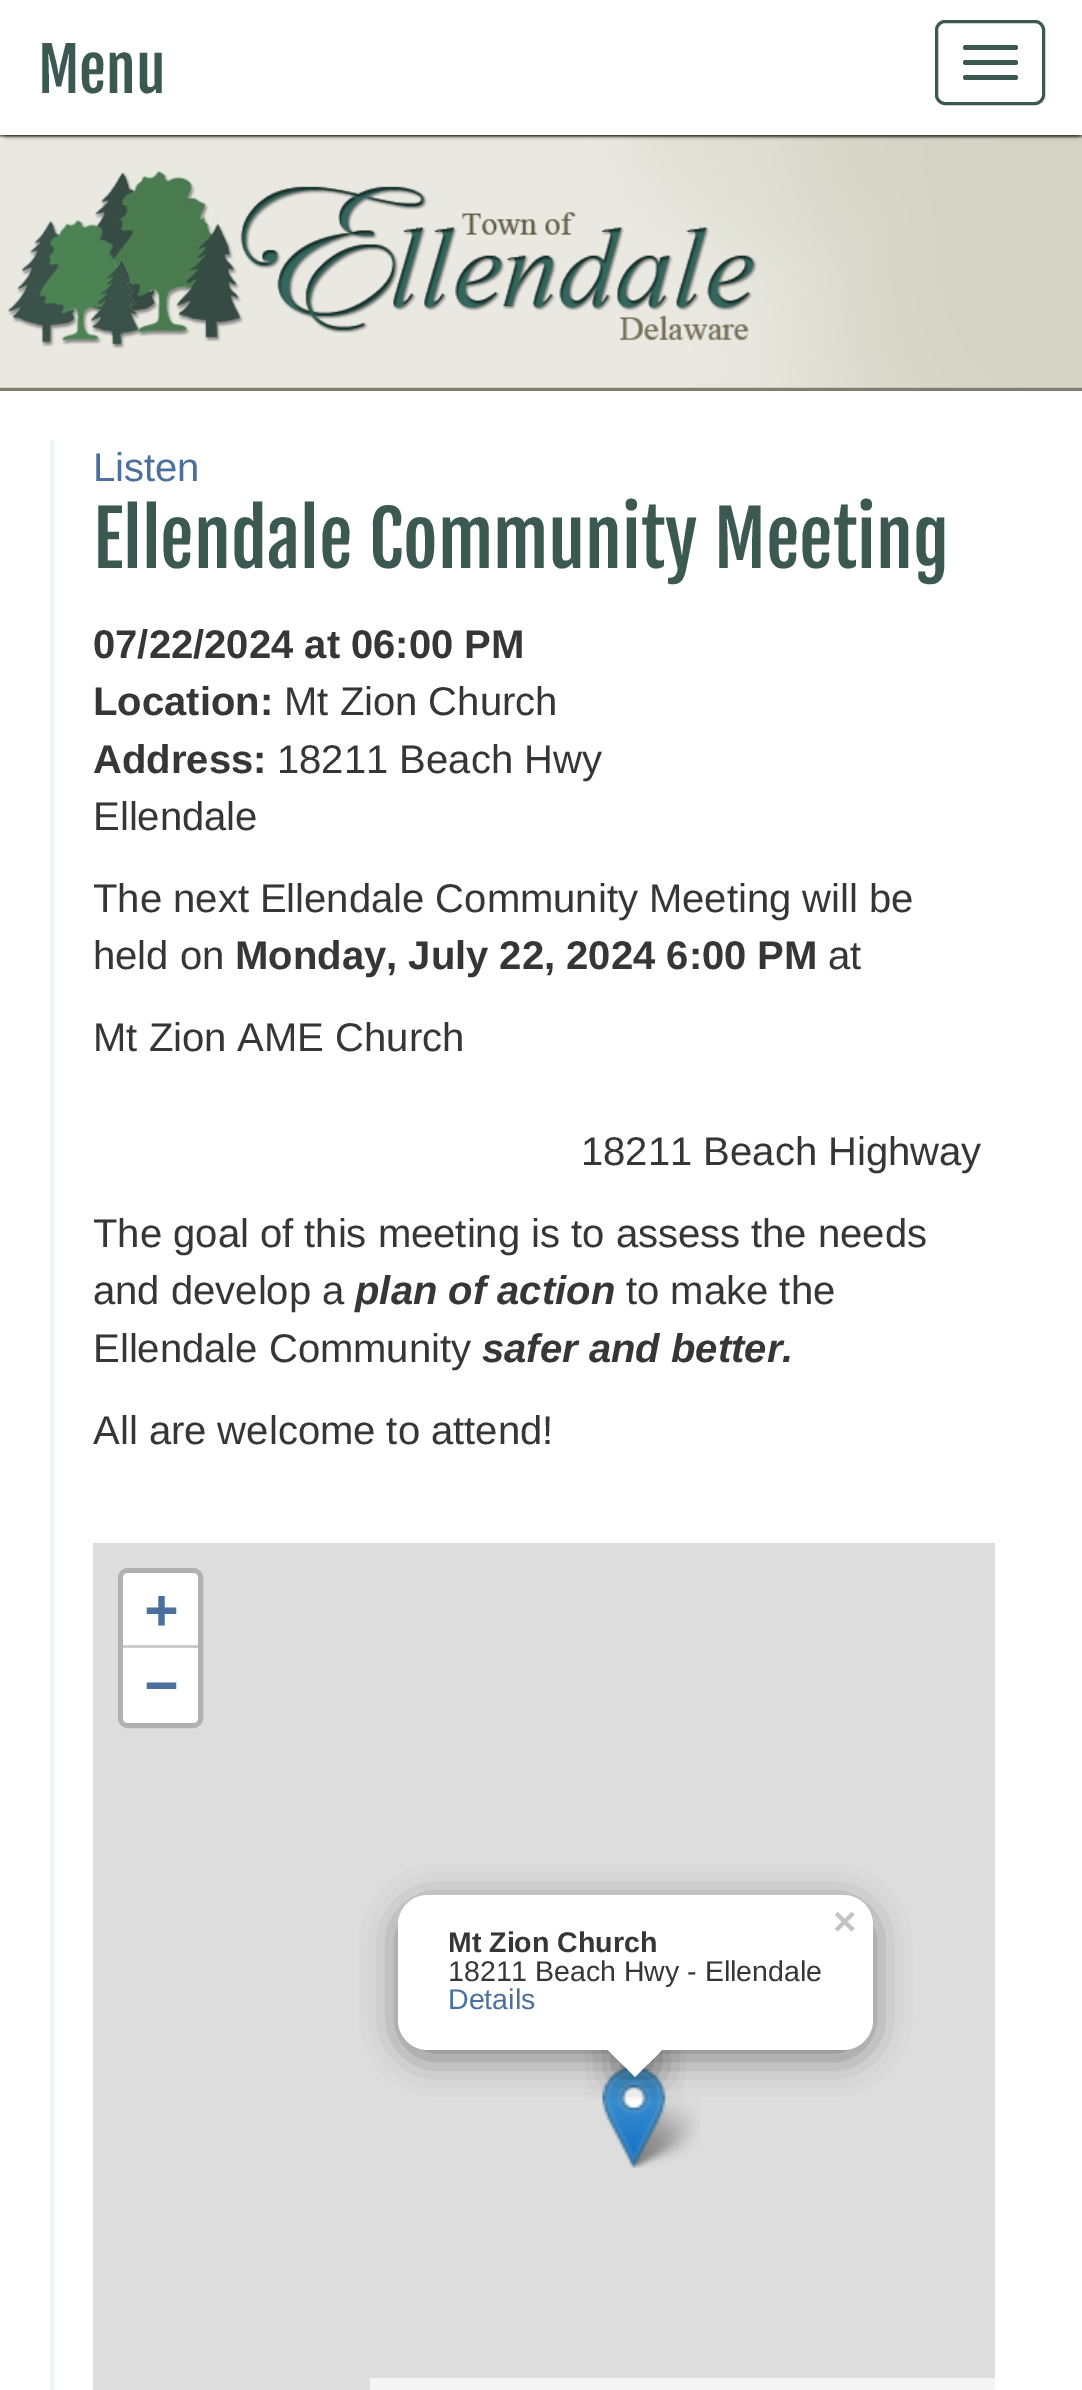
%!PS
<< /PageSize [1082 2390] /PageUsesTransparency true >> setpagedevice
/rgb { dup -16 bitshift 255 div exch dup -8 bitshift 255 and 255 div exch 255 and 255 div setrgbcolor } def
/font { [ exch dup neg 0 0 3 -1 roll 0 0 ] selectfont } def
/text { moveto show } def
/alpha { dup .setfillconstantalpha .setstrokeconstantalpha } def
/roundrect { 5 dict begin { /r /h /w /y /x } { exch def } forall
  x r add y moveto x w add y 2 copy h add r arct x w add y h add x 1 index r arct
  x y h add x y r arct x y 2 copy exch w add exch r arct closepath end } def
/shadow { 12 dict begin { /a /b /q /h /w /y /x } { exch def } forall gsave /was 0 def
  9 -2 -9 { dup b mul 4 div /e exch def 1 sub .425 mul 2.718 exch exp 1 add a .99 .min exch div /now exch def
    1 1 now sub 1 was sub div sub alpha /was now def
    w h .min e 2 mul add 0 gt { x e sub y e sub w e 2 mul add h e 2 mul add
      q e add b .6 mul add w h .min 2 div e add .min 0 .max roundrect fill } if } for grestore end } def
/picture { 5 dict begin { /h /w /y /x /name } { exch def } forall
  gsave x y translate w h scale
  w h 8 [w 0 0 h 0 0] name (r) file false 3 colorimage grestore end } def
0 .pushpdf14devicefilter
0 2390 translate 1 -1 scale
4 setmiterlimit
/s1 { /FjallaOne-Regular 60 font 16#3B5951 rgb } def
/s2 { /LiberationSans-Regular 40 font 16#4C709D rgb } def
/s3 { /FjallaOne-Regular 75 font 16#3B5951 rgb } def
/s4 { /LiberationSans-Bold 40 font 16#363636 rgb } def
/s5 { /LiberationSans-Regular 40 font 16#363636 rgb } def
/s6 { /LiberationSans-BoldItalic 40 font 16#363636 rgb } def
/s7 { /DejaVuSansMono-Bold 55 font 16#4C709D rgb } def
/s8 { /LiberationSans-Bold 40 font 16#C3C3C3 rgb } def
/s9 { /LiberationSans-Bold 28.5 font 16#363636 rgb } def
/s10 { /LiberationSans-Regular 28.5 font 16#363636 rgb } def
/s11 { /LiberationSans-Regular 28.5 font 16#4C709D rgb } def
16#B4B4AE rgb
0 0 1082 2390 rectfill
(pic1.raw) 0 135 1082 253 picture
16#000000 rgb
5 10 1073 125 0 2.5 1 shadow
16#FFFFFF rgb
0 0 1082 135 rectfill
s1
(Menu) 38 93 text
3 setlinewidth
936.5 21.5 107 82 8.5 roundrect stroke
963 45 55 5 2.5 roundrect fill
963 60 55 5 2.5 roundrect fill
963 75 55 5 2.5 roundrect fill
16#817E6F rgb
0 388 1082 3 rectfill
16#FFFFFF rgb
0 391 1082 1999 rectfill
16#EEF4F7 rgb
50 440 5 1950 rectfill
s2
(Listen) 93 481 text
s3
(Ellendale Community Meeting) 93 568 text
s4
(07/22/2024 at 06:00 PM) 93 658 text
(Location:) 93 715 text
s5
(Mt Zion Church) 284 715 text
s4
(Address:) 93 773 text
s5
(18211 Beach Hwy) 277 773 text
(Ellendale) 93 830 text
(The next Ellendale Community Meeting will be) 93 912 text
(held on) 93 969 text
s4
(Monday, July 22, 2024 6:00 PM) 235 969 text
s5
(at) 828 969 text
(Mt Zion AME Church) 93 1051 text
(18211 Beach Highway) 581 1165 text
(The goal of this meeting is to assess the needs) 93 1247 text
(and develop a) 93 1304 text
s6
(plan of action) 355 1304 text
s5
(to make the) 626 1304 text
(Ellendale Community) 93 1362 text
s6
(safer and better.) 482 1362 text
s5
(All are welcome to attend!) 93 1444 text
16#DDDDDD rgb
93 1543 902 847 rectfill
16#B1B1B1 rgb
5 setlinewidth
120.5 1570.5 80 155 7.5 roundrect stroke
16#FFFFFF rgb
128 1573 moveto 193 1573 lineto 196 1573 198 1575 198 1578 curveto 198 1648 lineto 123 1648 lineto 123 1578 lineto 123 1575 125 1573 128 1573 curveto closepath fill
16#CCCCCC rgb
123 1645 75 3 rectfill
s7
(+) 145 1628 text
16#FFFFFF rgb
123 1648 moveto 198 1648 lineto 198 1718 lineto 198 1721 196 1723 193 1723 curveto 128 1723 lineto 125 1723 123 1721 123 1718 curveto closepath fill
s7
(−) 145 1703 text
16#F5F5F5 rgb
370 2378 625 12 rectfill
(pic3.raw) 625 2097 75 71 picture
(pic2.raw) 602 2066 64 102 picture
16#000000 rgb
398 1903 475 155 30 17.5 0.4 shadow
16#FFFFFF rgb
398 1895 475 155 30 roundrect fill
s8
(×) 833 1935 text
s9
(Mt Zion Church) 448 1952 text
s10
(18211 Beach Hwy - Ellendale) 448 1981 text
s11
(Details) 448 2009 text
gsave
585 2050 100 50 rectclip
16#000000 rgb
615 2033 43 42 0 17.5 0.4 shadow
grestore
gsave
585 2050 100 50 rectclip
16#FFFFFF rgb
635 2017 moveto 665 2047 lineto 635 2077 lineto 605 2047 lineto closepath fill
grestore
.poppdf14devicefilter showpage
